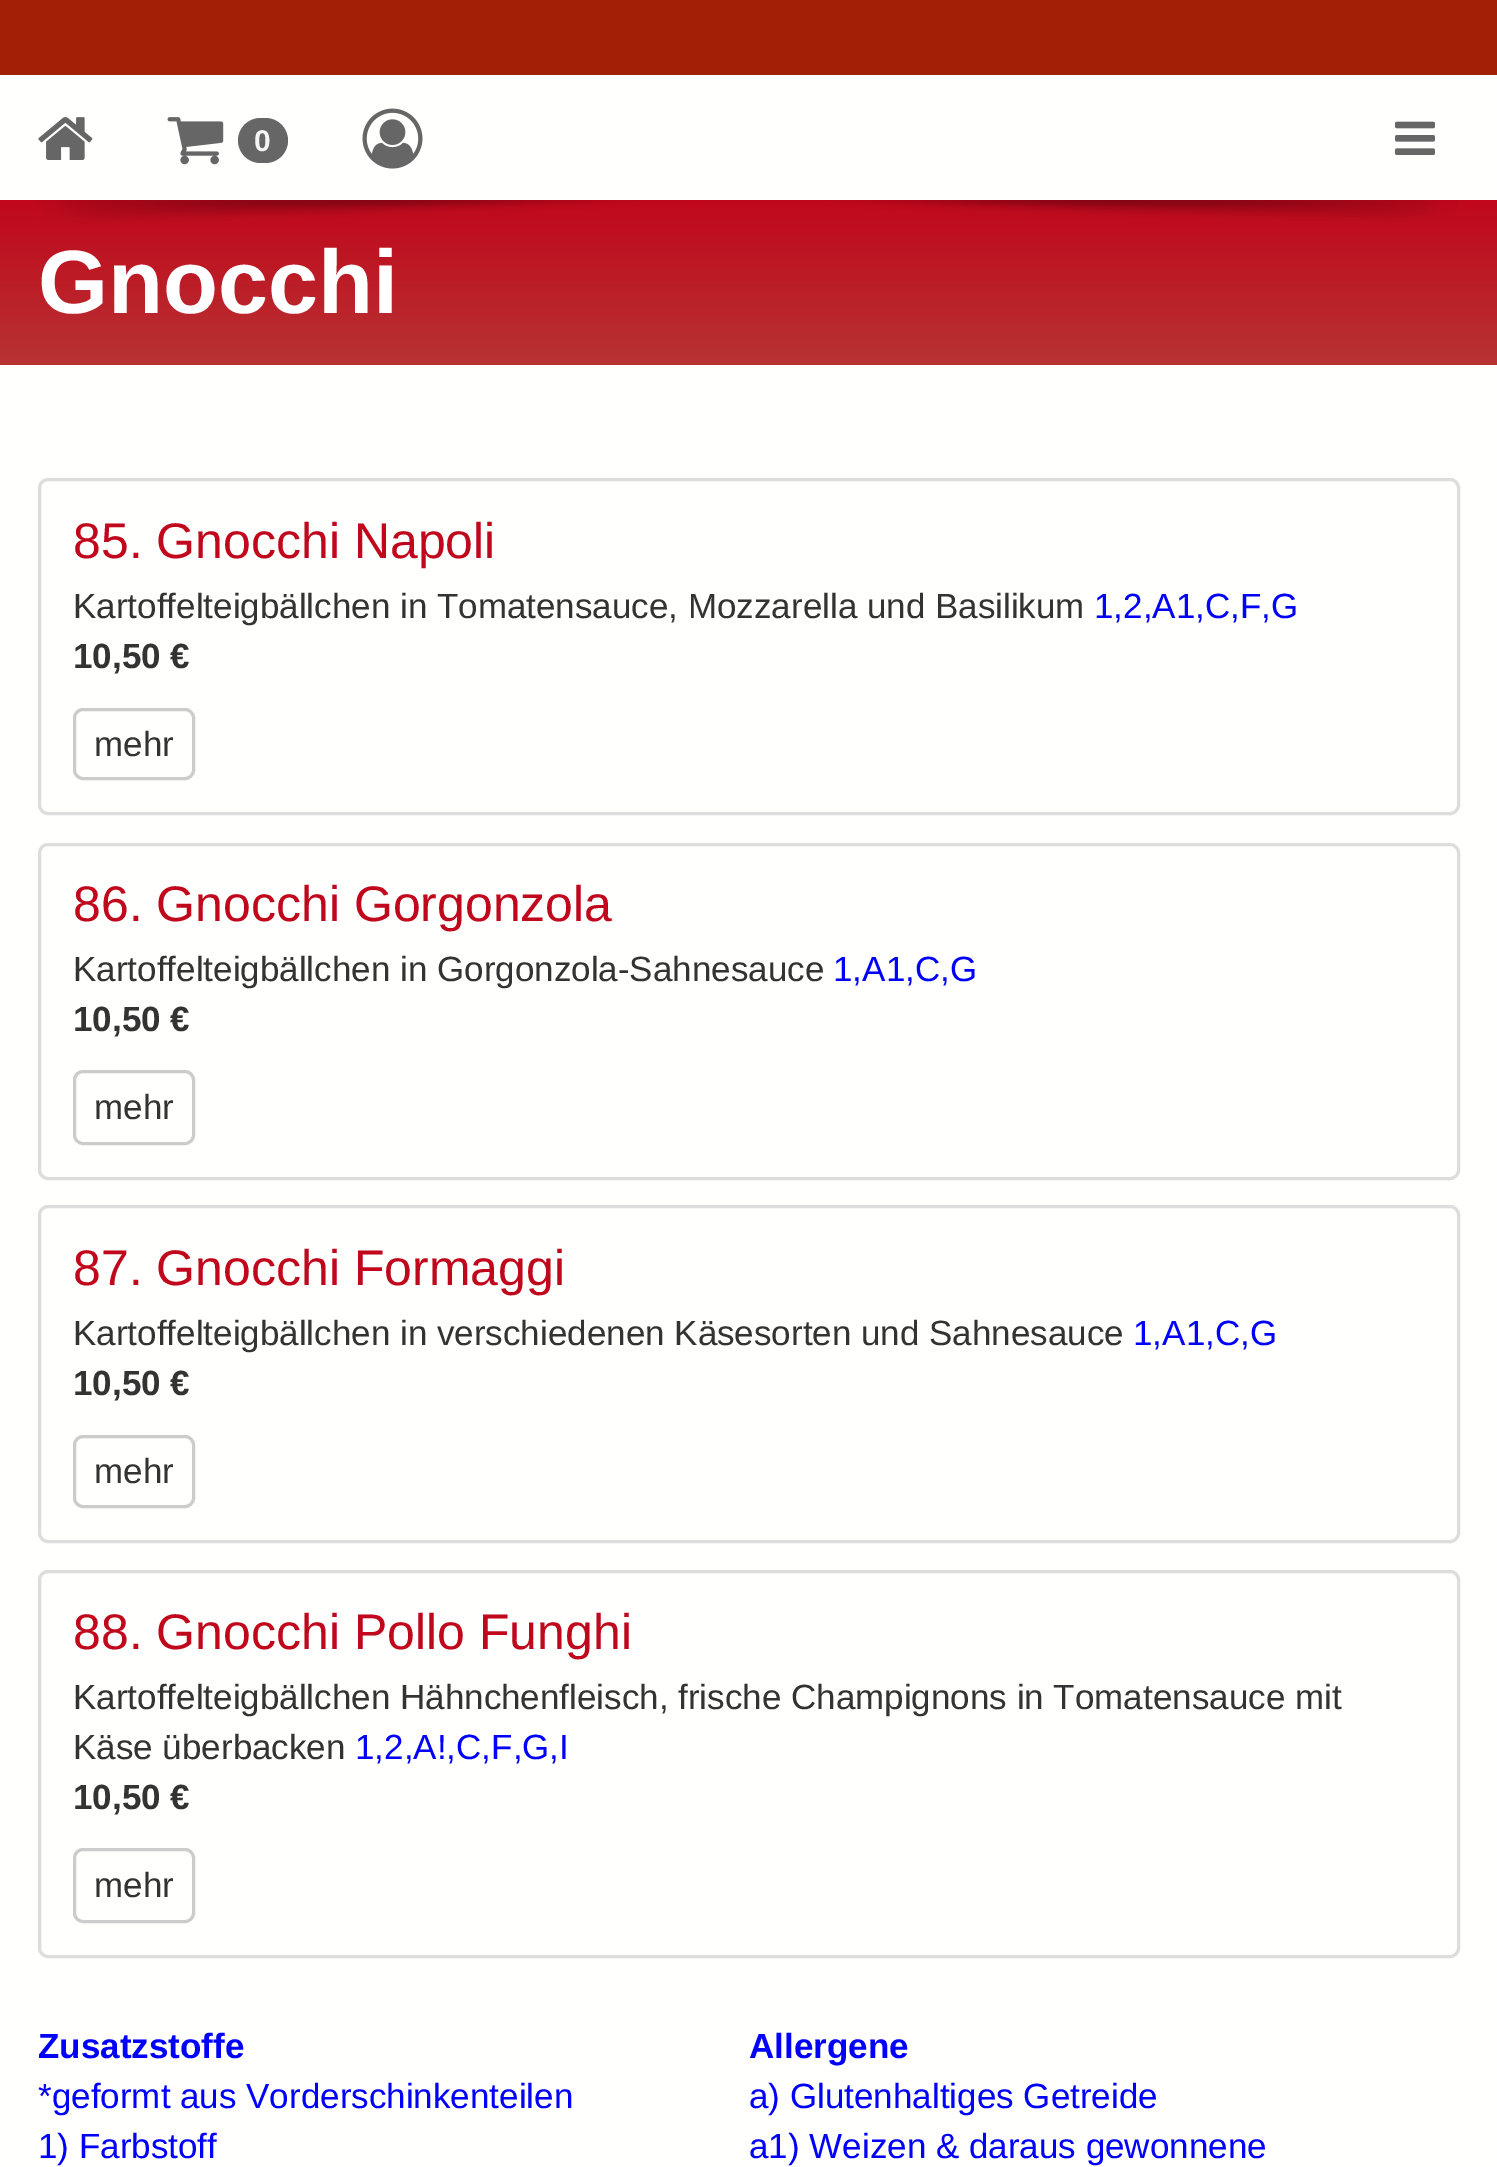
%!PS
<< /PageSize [1497 2167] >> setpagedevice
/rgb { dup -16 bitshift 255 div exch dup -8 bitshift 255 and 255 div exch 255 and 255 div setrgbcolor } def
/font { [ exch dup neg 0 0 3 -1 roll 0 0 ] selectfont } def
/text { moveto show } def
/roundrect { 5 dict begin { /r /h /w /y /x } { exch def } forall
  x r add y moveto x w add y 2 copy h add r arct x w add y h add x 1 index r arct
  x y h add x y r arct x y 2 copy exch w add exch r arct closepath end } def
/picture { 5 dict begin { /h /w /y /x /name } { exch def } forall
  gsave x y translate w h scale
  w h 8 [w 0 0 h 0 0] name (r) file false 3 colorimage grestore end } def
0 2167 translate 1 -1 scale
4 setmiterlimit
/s1 { /LiberationSans-Bold 30 font 16#F5F5F5 rgb } def
/s2 { /LiberationSans-Bold 90 font 16#FFFFFF rgb } def
/s3 { /LiberationSans-Regular 50 font 16#C1071C rgb } def
/s4 { /LiberationSans-Regular 35 font 16#333333 rgb } def
/s5 { /LiberationSans-Regular 35 font 16#0000FB rgb } def
/s6 { /LiberationSans-Bold 35 font 16#333333 rgb } def
/s7 { /LiberationSans-Bold 35 font 16#0000FB rgb } def
16#FFFFFE rgb
0 0 1497 2167 rectfill
16#A31F05 rgb
0 0 1497 75 rectfill
(pic1.raw) 38 117 55 43 picture
(pic2.raw) 167 117 57 48 picture
16#666666 rgb
238 118 50 45 22.5 roundrect fill
s1
(0) 254 151 text
(pic3.raw) 362 108 61 61 picture
(pic4.raw) 1395 121 40 34 picture
gsave 0 200 moveto 1497 200 lineto 1497 365 lineto 0 365 lineto closepath clip newpath
<< /ShadingType 2 /ColorSpace /DeviceRGB /Coords [749 200 749 365] /Extend [true true] /Function << /FunctionType 2 /Domain [0 1] /C0 [0.757 0.027 0.11] /C1 [0.718 0.2 0.196] /N 1 >> >> shfill grestore
(pic5.raw) 37 200 1421 24 picture
s2
(Gnocchi) 38 313 text
16#DDDDDD rgb
3 setlinewidth
39.5 479.5 1419 334 8.5 roundrect stroke
s3
(85. Gnocchi Napoli) 73 558 text
s4
(Kartoffelteigbällchen in Tomatensauce, Mozzarella und Basilikum) 73 618 text
s5
(1,2,A1,C,F,G) 1094 618 text
s6
(10,50 €) 73 668 text
16#CCCCCC rgb
74.5 709.5 119 69 8.5 roundrect stroke
s4
(mehr) 94 756 text
16#DDDDDD rgb
39.5 844.5 1419 334 8.5 roundrect stroke
s3
(86. Gnocchi Gorgonzola) 73 921 text
s4
(Kartoffelteigbällchen in Gorgonzola-Sahnesauce) 73 981 text
s5
(1,A1,C,G) 833 981 text
s6
(10,50 €) 73 1031 text
16#CCCCCC rgb
74.5 1071.5 119 72 8.5 roundrect stroke
s4
(mehr) 94 1119 text
16#DDDDDD rgb
39.5 1206.5 1419 335 8.5 roundrect stroke
s3
(87. Gnocchi Formaggi) 73 1285 text
s4
(Kartoffelteigbällchen in verschiedenen Käsesorten und Sahnesauce) 73 1345 text
s5
(1,A1,C,G) 1133 1345 text
s6
(10,50 €) 73 1395 text
16#CCCCCC rgb
74.5 1436.5 119 70 8.5 roundrect stroke
s4
(mehr) 94 1483 text
16#DDDDDD rgb
39.5 1571.5 1419 385 8.5 roundrect stroke
s3
(88. Gnocchi Pollo Funghi) 73 1649 text
s4
(Kartoffelteigbällchen Hähnchenfleisch, frische Champignons in Tomatensauce mit) 73 1709 text
(Käse überbacken) 73 1759 text
s5
(1,2,A!,C,F,G,I) 355 1759 text
s6
(10,50 €) 73 1809 text
16#CCCCCC rgb
74.5 1849.5 119 72 8.5 roundrect stroke
s4
(mehr) 94 1897 text
s7
(Zusatzstoffe) 38 2058 text
s5
(*geformt aus Vorderschinkenteilen) 38 2108 text
(1\) Farbstoff) 38 2158 text
s7
(Allergene) 749 2058 text
s5
(a\) Glutenhaltiges Getreide) 749 2108 text
(a1\) Weizen & daraus gewonnene) 749 2158 text
showpage
